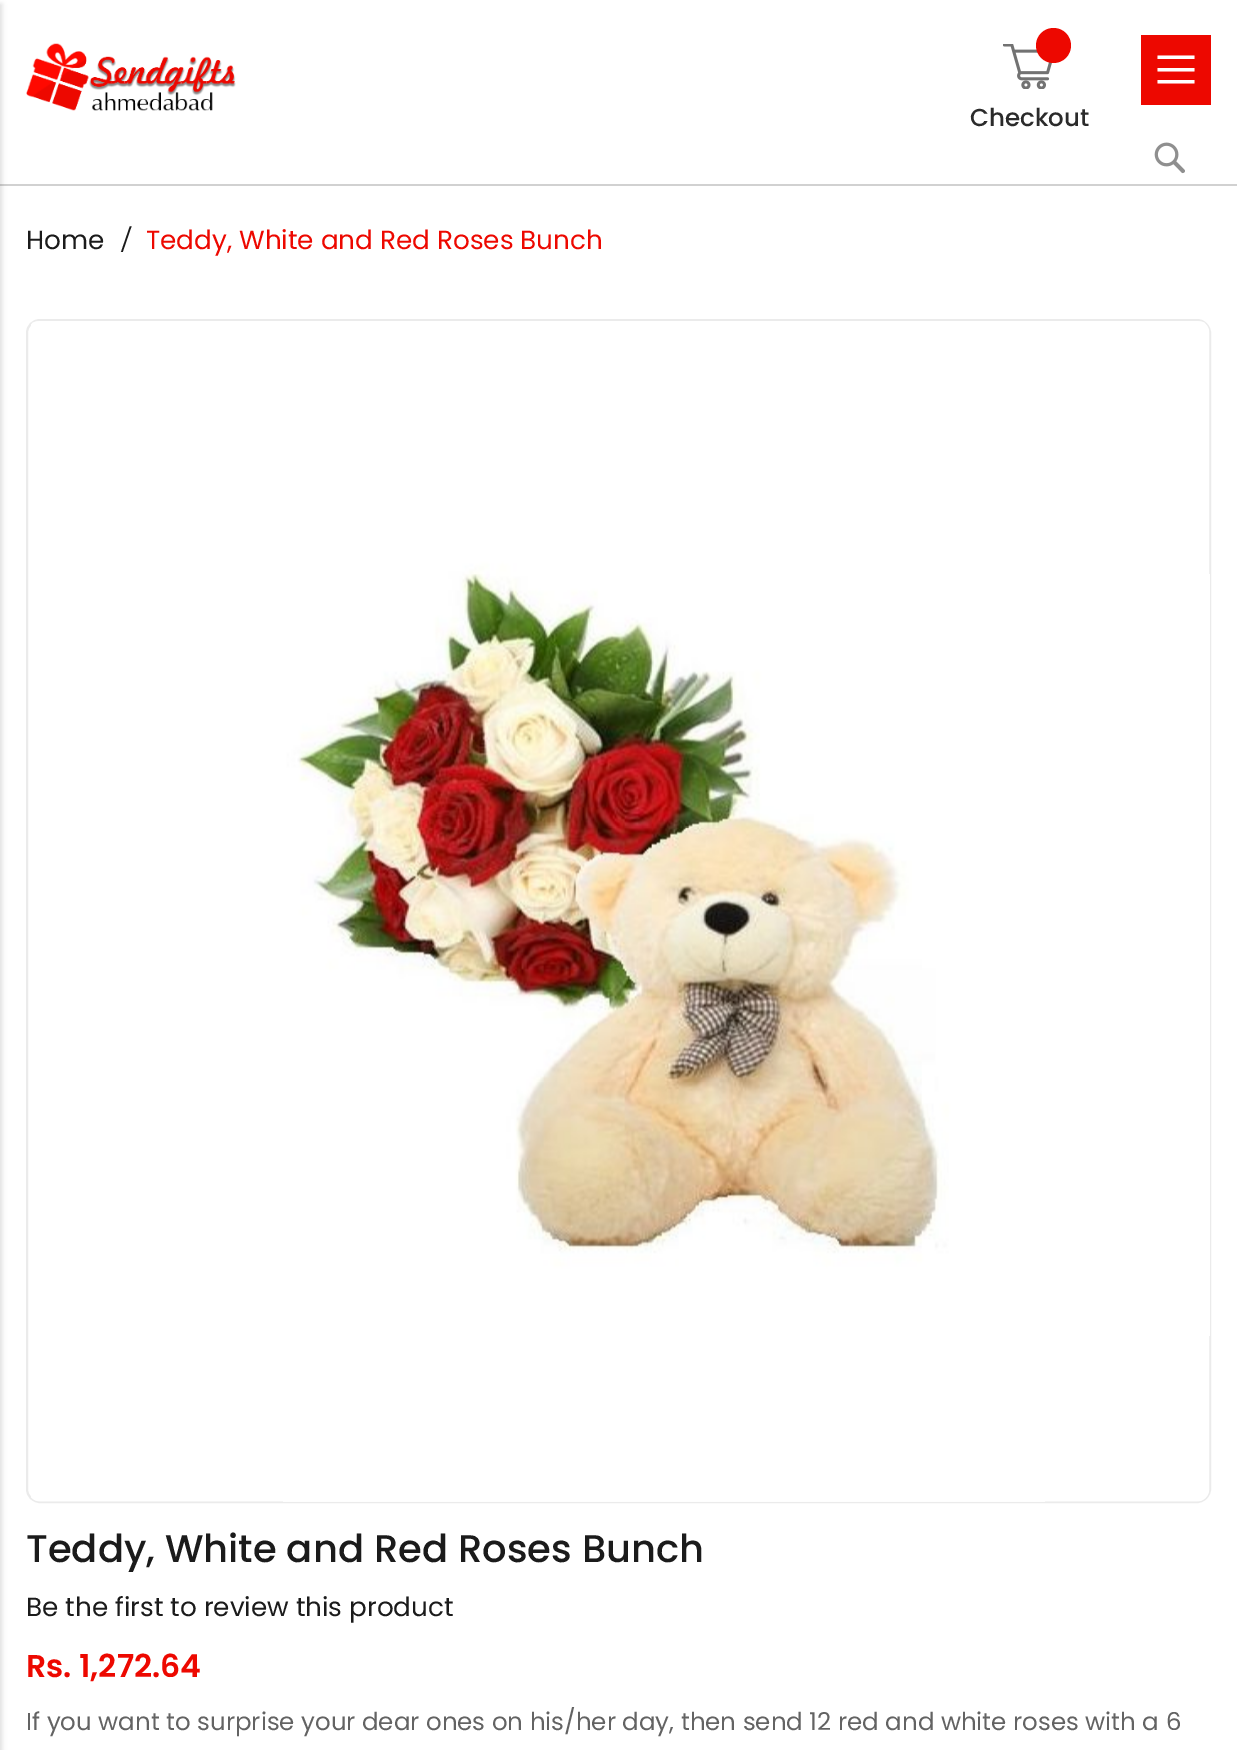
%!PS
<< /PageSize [1237 1750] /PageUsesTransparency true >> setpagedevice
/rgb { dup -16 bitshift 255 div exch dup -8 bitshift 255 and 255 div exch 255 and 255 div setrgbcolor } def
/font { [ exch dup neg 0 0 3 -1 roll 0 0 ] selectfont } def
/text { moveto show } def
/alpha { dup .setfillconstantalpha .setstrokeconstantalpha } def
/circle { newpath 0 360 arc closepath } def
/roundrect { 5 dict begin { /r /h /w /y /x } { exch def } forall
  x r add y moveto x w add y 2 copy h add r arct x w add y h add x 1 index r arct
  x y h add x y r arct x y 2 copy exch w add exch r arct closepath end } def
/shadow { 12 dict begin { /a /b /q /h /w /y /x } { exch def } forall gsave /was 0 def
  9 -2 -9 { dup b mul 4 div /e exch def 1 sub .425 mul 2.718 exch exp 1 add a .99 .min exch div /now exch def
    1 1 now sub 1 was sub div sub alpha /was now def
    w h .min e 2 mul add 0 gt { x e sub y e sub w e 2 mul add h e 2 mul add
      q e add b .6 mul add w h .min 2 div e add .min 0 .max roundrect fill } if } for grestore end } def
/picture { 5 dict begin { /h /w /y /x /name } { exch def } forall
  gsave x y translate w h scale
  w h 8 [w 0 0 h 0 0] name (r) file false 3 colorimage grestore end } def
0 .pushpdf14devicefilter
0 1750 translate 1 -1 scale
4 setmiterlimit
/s1 { /Poppins-Medium 24.5 font 16#2B2B2B rgb } def
/s2 { /Poppins-Regular 26.25 font 16#1B1B1B rgb } def
/s3 { /LiberationSerif-Regular 42 font 16#1B1B1B rgb } def
/s4 { /Poppins-Regular 26.25 font 16#ED0800 rgb } def
/s5 { /Poppins-Medium 38.5 font 16#1B1B1B rgb } def
/s6 { /Poppins-SemiBold 31.5 font 16#ED0800 rgb } def
/s7 { /Poppins-Regular 24.5 font 16#636363 rgb } def
16#FFFFFF rgb
0 0 1237 1750 rectfill
16#D1D1D1 rgb
0 184 1237 2 rectfill
16#000000 rgb
-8 4 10 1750 0 2.5 0.12 shadow
16#ED0800 rgb
1141 35 70 70 rectfill
16#FFFFFF rgb
1157.5 55.5 moveto 1157.5 59 lineto 1194.5 59 lineto 1194.5 55.5 lineto closepath 1157.5 71.5 moveto 1194.5 71.5 lineto 1194.5 68 lineto 1157.5 68 lineto closepath 1157.5 83.5 moveto 1194.5 83.5 lineto 1194.5 80 lineto 1157.5 80 lineto closepath fill
(pic1.raw) 26 43 210 68 picture
(pic2.raw) 1003 44 50 45 picture
16#ED0800 rgb
1053.5 45.5 17.5 circle fill
s1
(Checkout) 970 126 text
(pic3.raw) 1154 142 31 32 picture
s2
(Home) 26 249 text
gsave
112 221 28 31 rectclip
s3
(/) 120 254 text
grestore
s4
(Teddy, White and Red Roses Bunch) 146 249 text
16#EBEBEB rgb
2 setlinewidth
27 320 1183 1182 13 roundrect stroke
(pic4.raw) 31 321 1179 1181 picture
s5
(Teddy, White and Red Roses Bunch) 26 1562 text
s2
(Be the first to review this product) 26 1616 text
s6
(Rs. 1,272.64) 26 1677 text
s7
(If you want to surprise your dear ones on his/her day, then send 12 red and white roses with a 6) 26 1730 text
.poppdf14devicefilter showpage
